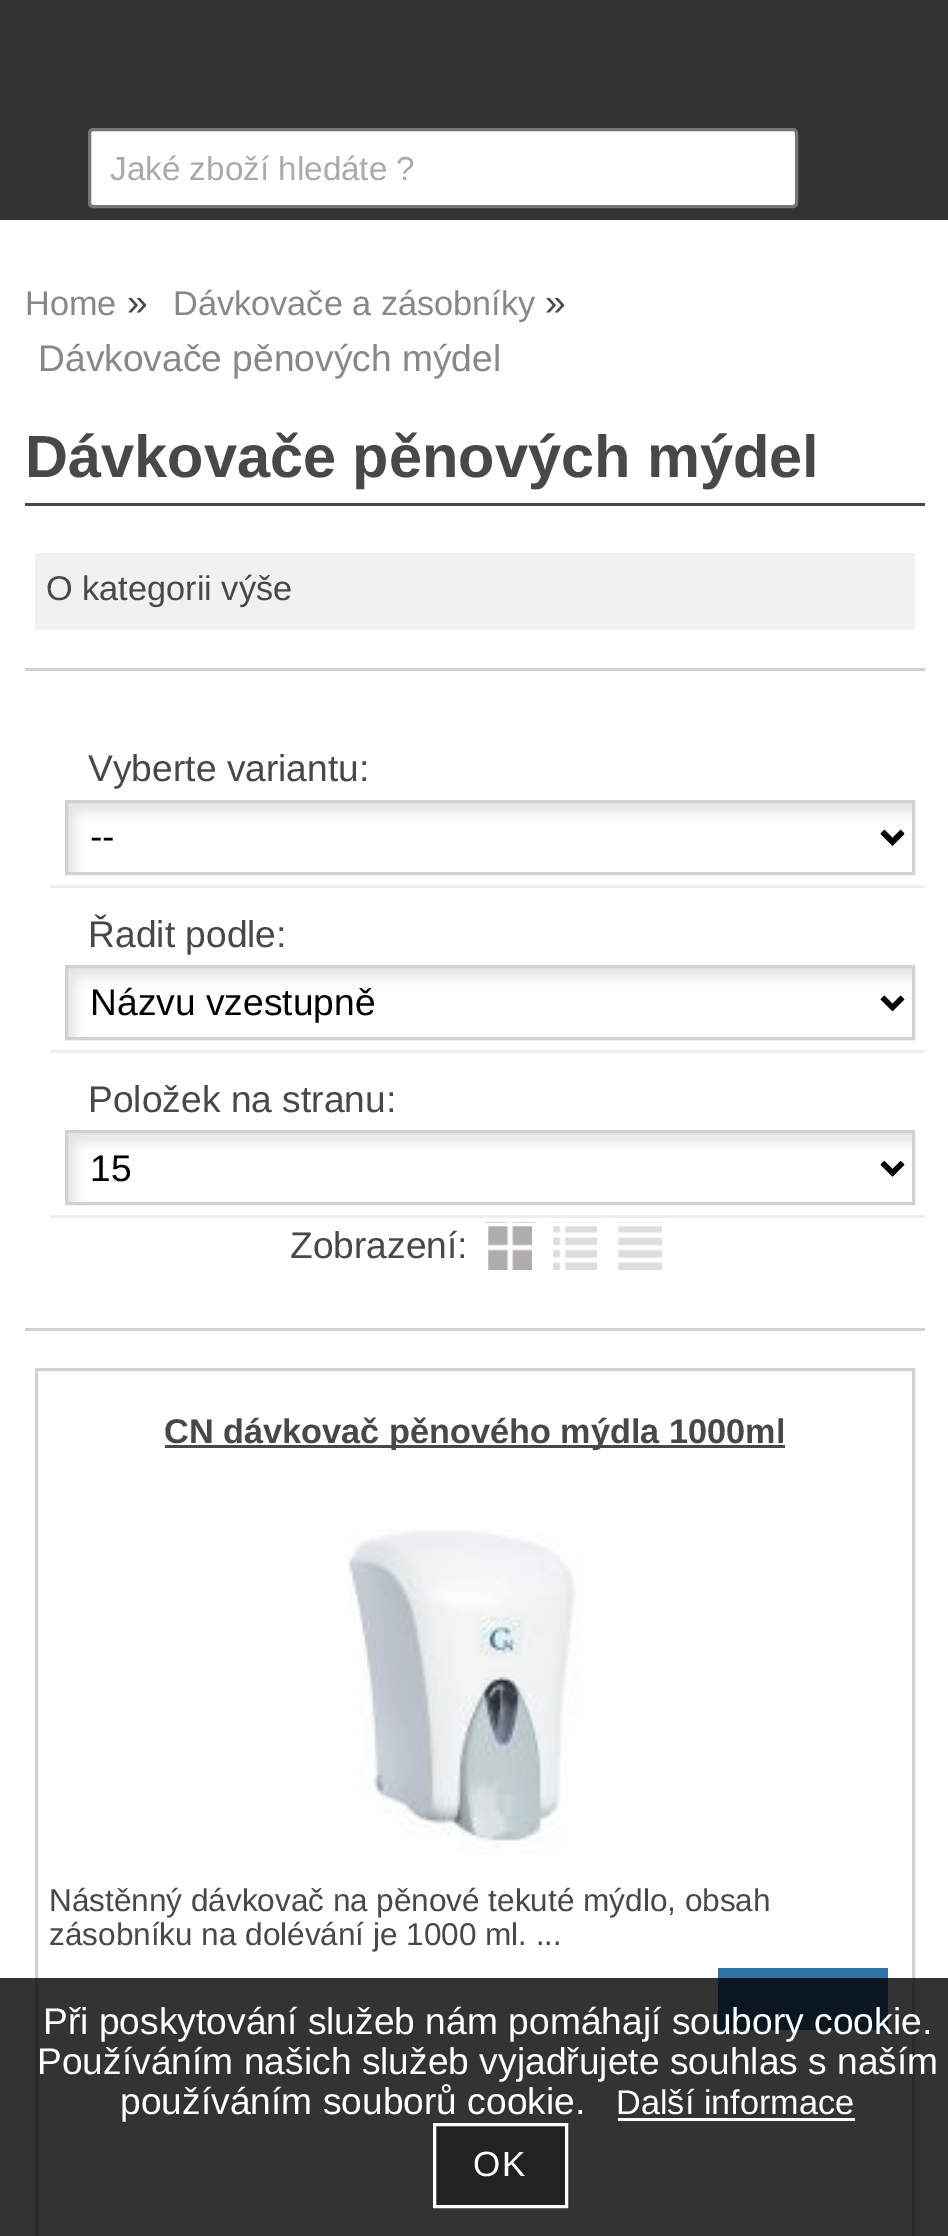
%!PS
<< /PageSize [948 2236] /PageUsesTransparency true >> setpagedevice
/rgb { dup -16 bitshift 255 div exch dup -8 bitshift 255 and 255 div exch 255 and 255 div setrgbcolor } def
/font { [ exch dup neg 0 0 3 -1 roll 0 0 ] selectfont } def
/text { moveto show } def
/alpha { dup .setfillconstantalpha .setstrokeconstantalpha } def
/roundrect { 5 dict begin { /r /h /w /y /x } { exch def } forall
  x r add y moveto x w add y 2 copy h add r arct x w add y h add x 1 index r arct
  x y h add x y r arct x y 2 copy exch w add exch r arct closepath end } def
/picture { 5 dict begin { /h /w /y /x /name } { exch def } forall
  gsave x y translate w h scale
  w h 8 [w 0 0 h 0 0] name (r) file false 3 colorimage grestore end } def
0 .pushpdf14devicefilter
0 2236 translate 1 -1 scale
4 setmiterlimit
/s1 { /LiberationSans-Regular 33.25 font 16#AAAAAA rgb } def
/s2 { /LiberationSans-Regular 34.3 font 16#888888 rgb } def
/s3 { /LiberationSans-Regular 37.2 font 16#484848 rgb } def
/s4 { /LiberationSans-Regular 37.2 font 16#888888 rgb } def
/s5 { /LiberationSans-Bold 59.5 font 16#484848 rgb } def
/s6 { /LiberationSans-Regular 34.3 font 16#484848 rgb } def
/s7 { /LiberationSans-Regular 37.2 font 16#000000 rgb } def
/s8 { /LiberationSans-Bold 34.3 font 16#484848 rgb } def
/s9 { /LiberationSans-Regular 31.5 font 16#484848 rgb } def
/s10 { /LiberationSans-Regular 37.2 font 16#FFFFFF rgb } def
/s11 { /LiberationSans-Regular 34.3 font 16#FFFFFF rgb } def
16#FFFFFF rgb
0 0 948 2236 rectfill
16#333333 rgb
0 0 948 220 rectfill
16#FFFFFF rgb
89.5 129.5 707 77 3.5 roundrect gsave fill grestore
16#767676 rgb
3 setlinewidth
stroke
s1
(Jaké zboží hledáte ?) 110 180 text
s2
(Home) 25 315 text
s3
(») 127 315 text
s2
(Dávkovače a zásobníky) 173 315 text
s3
(») 545 315 text
s4
(Dávkovače pěnových mýdel) 38 371 text
16#484848 rgb
25 503 900 3 rectfill
s5
(Dávkovače pěnových mýdel) 25 477 text
16#F1F1F1 rgb
35 553 880 77 rectfill
s6
(O kategorii výše) 46 600 text
16#D2D0D0 rgb
25 668 900 3 rectfill
25 1328 900 3 rectfill
16#EEEEEE rgb
50 885 875 3 rectfill
s3
(Vyberte variantu:) 88 781 text
(pic1.raw) 68 803 844 69 picture
16#D2D0D0 rgb
66.5 801.5 847 72 rectstroke
16#000000 rgb
5 setlinewidth
882.5 831.5 moveto 892.5 841.5 lineto 902.5 831.5 lineto stroke
(--) 90 849 text
16#EEEEEE rgb
50 1050 875 3 rectfill
s3
(Řadit podle:) 88 947 text
(pic1.raw) 68 968 844 69 picture
16#D2D0D0 rgb
3 setlinewidth
66.5 966.5 847 72 rectstroke
16#000000 rgb
5 setlinewidth
882.5 997.5 moveto 892.5 1007.5 lineto 902.5 997.5 lineto stroke
(Názvu vzestupně) 90 1015 text
16#EEEEEE rgb
50 1215 875 3 rectfill
s3
(Položek na stranu:) 88 1112 text
(pic1.raw) 68 1133 844 69 picture
16#D2D0D0 rgb
3 setlinewidth
66.5 1131.5 847 72 rectstroke
16#000000 rgb
5 setlinewidth
882.5 1163 moveto 892.5 1173 lineto 902.5 1163 lineto stroke
(15) 90 1181 text
s3
(Zobrazení:) 290 1258 text
(pic2.raw) 485 1222 50 48 picture
16#FFFFFF rgb
3 setlinewidth
486.5 1224.5 47 47 rectstroke
(pic3.raw) 550 1222 50 48 picture
551.5 1224.5 47 47 rectstroke
(pic4.raw) 615 1222 50 48 picture
616.5 1224.5 47 47 rectstroke
16#D2D0D0 rgb
36.5 1369.5 877 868 rectstroke
16#484848 rgb
165 1445 620 3 rectfill
s8
(CN dávkovač pěnového mýdla 1000ml) 164 1443 text
(pic5.raw) 347 1529 233 326 picture
s9
(Nástěnný dávkovač na pěnové tekuté mýdlo, obsah) 49 1911 text
(zásobníku na dolévání je 1000 ml. ...) 49 1945 text
16#2D73A8 rgb
718 1968 170 62 rectfill
0.8 alpha
16#000000 rgb
0 1978 948 258 rectfill
1 alpha
s10
(Při poskytování služeb nám pomáhají soubory cookie.) 43 2034 text
(Používáním našich služeb vyjadřujete souhlas s naším) 37 2074 text
(používáním souborů cookie.) 120 2114 text
s11
(Další informace) 616 2114 text
618 2118 237 3 rectfill
16#222222 rgb
434.5 2124.5 moveto 566.5 2124.5 lineto 566.5 2206.5 lineto 434.5 2206.5 lineto closepath gsave fill grestore
16#FFFFFF rgb
stroke
/LiberationSans-Regular 35 font
473 2176 moveto 2 0 (OK) ashow
.poppdf14devicefilter showpage
